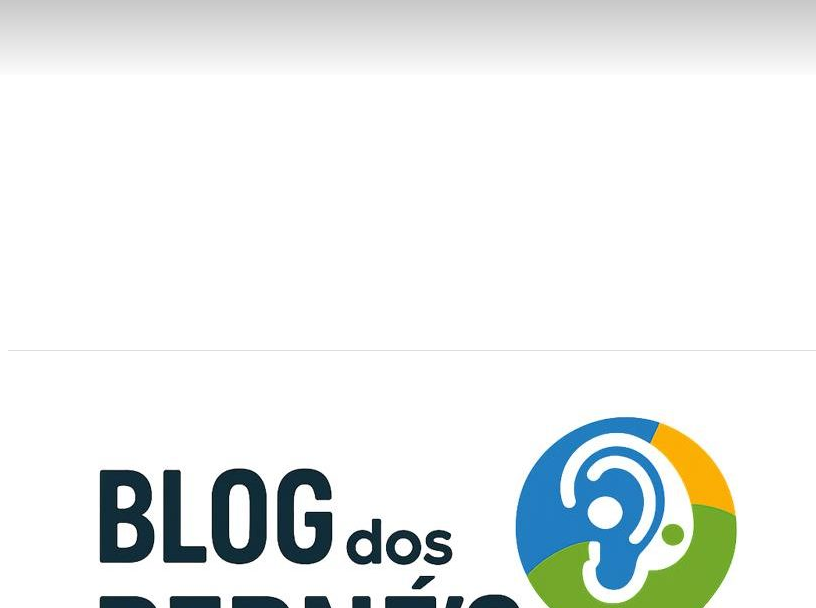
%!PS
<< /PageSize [816 608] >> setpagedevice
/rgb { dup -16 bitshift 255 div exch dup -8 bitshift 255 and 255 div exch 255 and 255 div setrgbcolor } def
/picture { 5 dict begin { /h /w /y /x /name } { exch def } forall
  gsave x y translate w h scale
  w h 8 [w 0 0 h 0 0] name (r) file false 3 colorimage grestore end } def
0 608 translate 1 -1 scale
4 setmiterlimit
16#FFFFFF rgb
0 0 816 608 rectfill
gsave 0 0 moveto 816 0 lineto 816 75 lineto 0 75 lineto closepath clip newpath
<< /ShadingType 2 /ColorSpace /DeviceRGB /Coords [408 0 408 608] /Extend [true true] /Function << /FunctionType 3 /Domain [0 1] /Functions [<< /FunctionType 2 /Domain [0 1] /C0 [0.784 0.784 0.784] /C1 [1 1 1] /N 1 >> << /FunctionType 2 /Domain [0 1] /C0 [1 1 1] /C1 [1 1 1] /N 1 >>] /Bounds [0.13] /Encode [0 1 0 1] >> >> shfill grestore
16#DDDDDD rgb
8 350 808 1 rectfill
(pic1.raw) 98 409 641 199 picture
showpage
